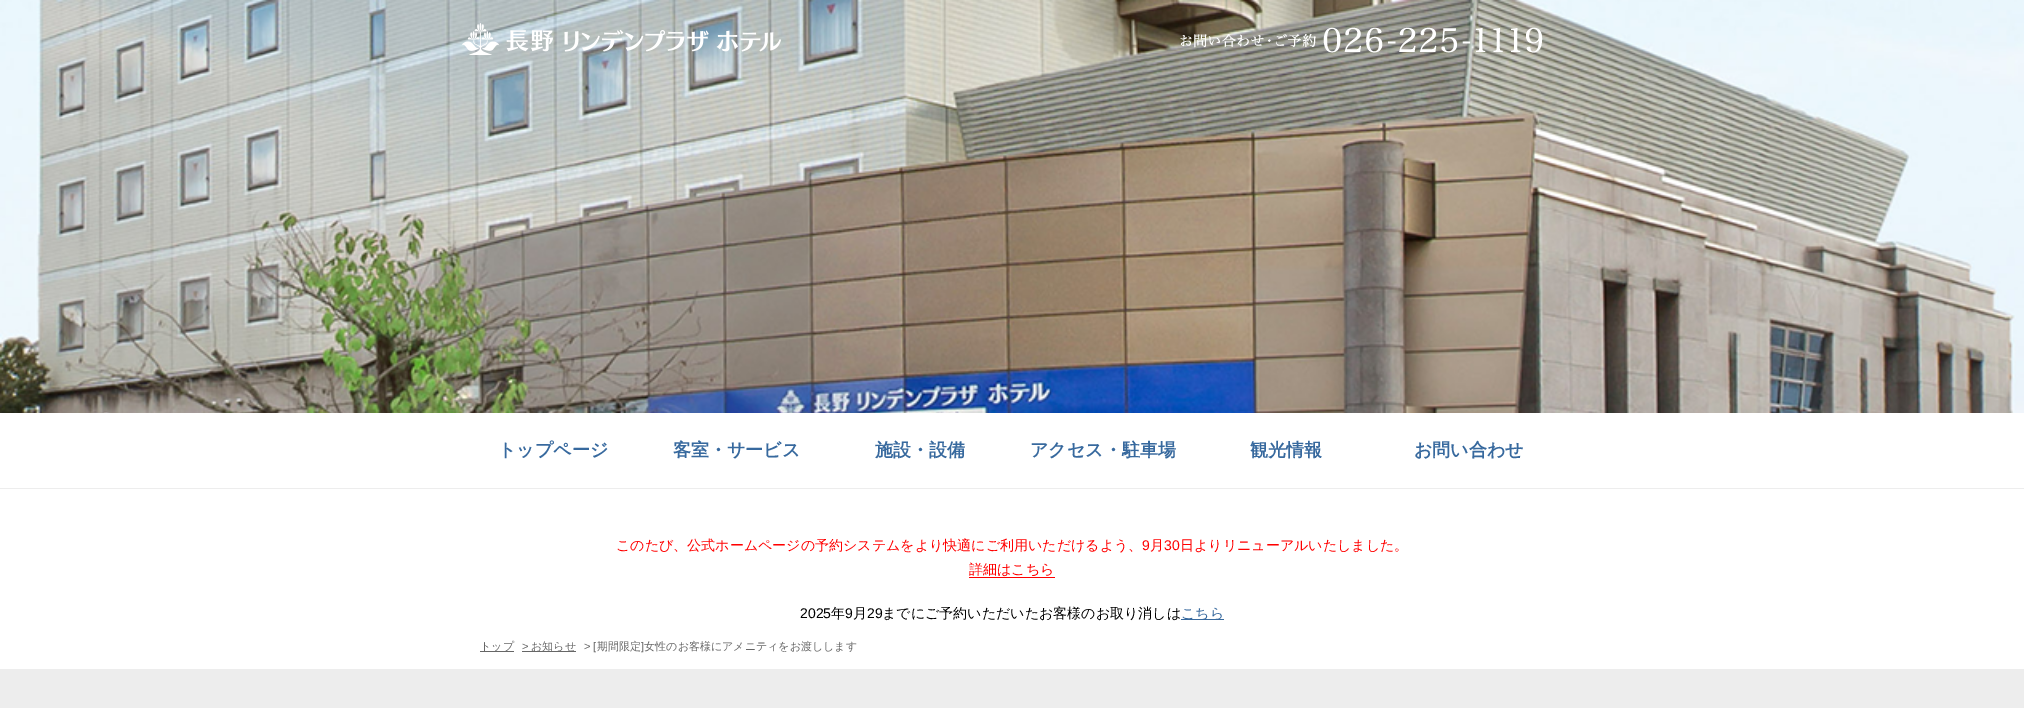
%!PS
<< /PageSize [2024 708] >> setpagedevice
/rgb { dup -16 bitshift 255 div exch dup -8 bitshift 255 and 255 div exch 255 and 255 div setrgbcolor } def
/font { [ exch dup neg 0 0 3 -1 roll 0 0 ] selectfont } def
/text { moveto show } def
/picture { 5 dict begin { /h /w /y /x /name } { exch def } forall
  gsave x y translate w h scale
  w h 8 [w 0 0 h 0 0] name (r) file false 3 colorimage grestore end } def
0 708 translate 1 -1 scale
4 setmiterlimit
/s1 { /WenQuanYiZenHei-Bold 18 font 16#37699E rgb } def
/s2 { /WenQuanYiZenHei-Medium 14 font 16#FF0000 rgb } def
/s3 { /LiberationSans-Regular 14 font 16#FF0000 rgb } def
/s4 { /LiberationSans-Regular 14 font 16#000000 rgb } def
/s5 { /WenQuanYiZenHei-Medium 14 font 16#000000 rgb } def
/s6 { /WenQuanYiZenHei-Medium 14 font 16#37699E rgb } def
/s7 { /WenQuanYiZenHei-Medium 11 font 16#666666 rgb } def
/s8 { /LiberationSans-Regular 11 font 16#666666 rgb } def
16#FFFFFF rgb
0 0 2024 708 rectfill
(pic1.raw) 0 0 2024 413 picture
(pic2.raw) 462 23 319 32 picture
(pic3.raw) 1180 27 363 26 picture
16#EDEDED rgb
0 488 2024 1 rectfill
s1
(トップページ) 498 456 text
(客室・サービス) 673 456 text
(施設・設備) 875 456 text
(アクセス・駐車場) 1030 456 text
(観光情報) 1250 456 text
(お問い合わせ) 1414 456 text
s2
(このたび、公式ホームページの予約システムをより快適にご利用いただけるよう、) 616 550 text
s3
(9) 1142 550 text
s2
(月) 1150 550 text
s3
(30) 1164 550 text
s2
(日よりリニューアルいたしました。) 1180 550 text
(詳細はこちら) 969 574 text
969 577 86 1 rectfill
s4
(2025) 800 618 text
s5
(年) 831 618 text
s4
(9) 845 618 text
s5
(月) 853 618 text
s4
(29) 867 618 text
s5
(までにご予約いただいたお客様のお取り消しは) 882 618 text
16#37699E rgb
1181 619 43 1 rectfill
(こちら) 1181 618 text
16#666666 rgb
480 651 34 1 rectfill
s7
(トップ) 480 650 text
s8
(>) 522 650 text
522 651 54 1 rectfill
s7
(お知らせ) 531 650 text
s8
(> [) 584 650 text
s7
(期間限定 女性のお客様にアメニティをお渡しします) 597 650 text
s8
(]) 641 650 text
16#EDEDED rgb
0 669 2024 39 rectfill
showpage
